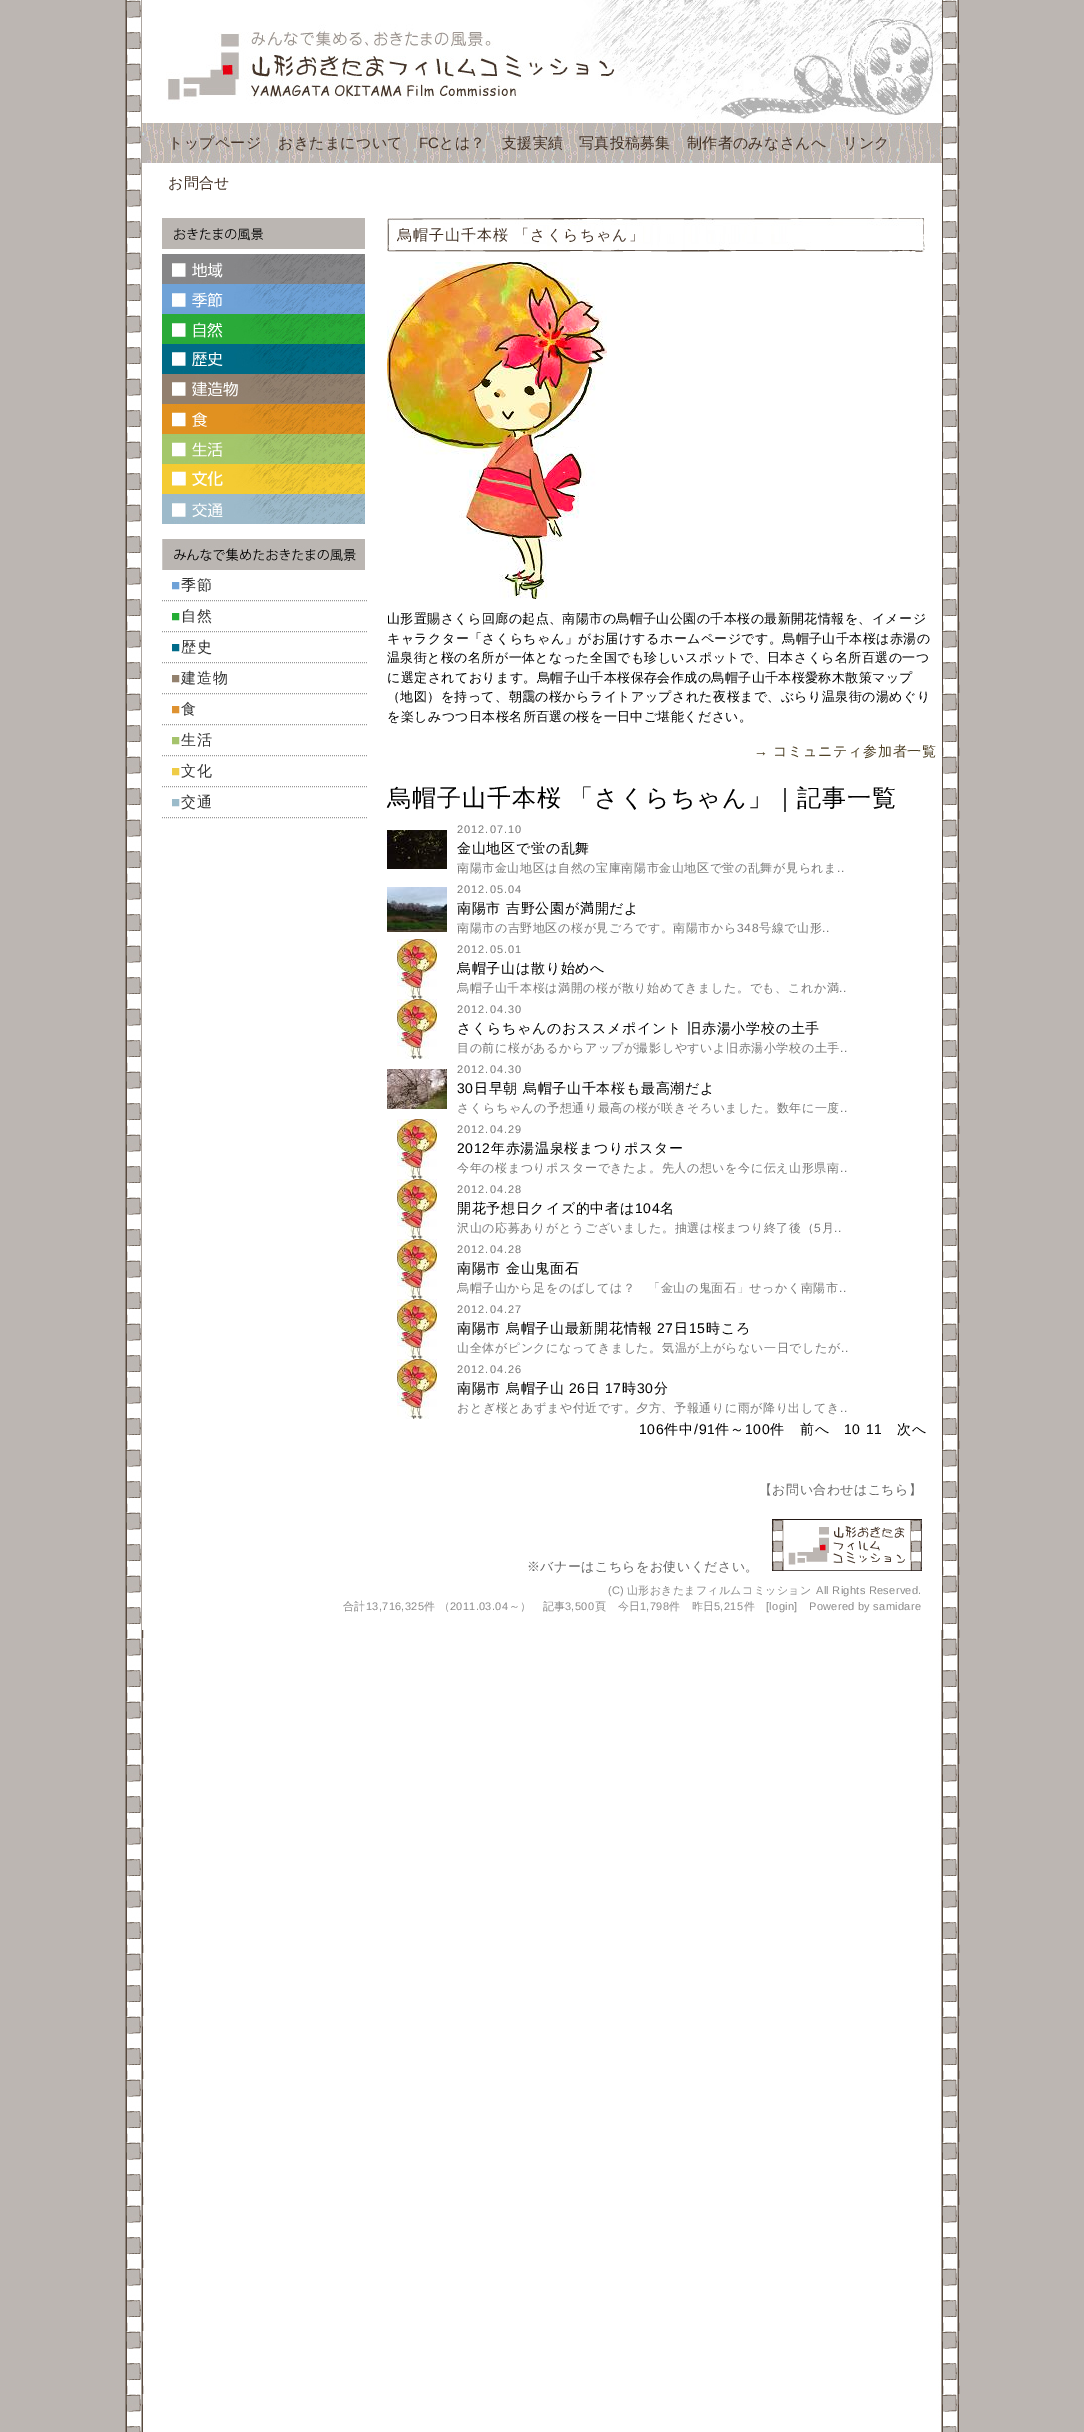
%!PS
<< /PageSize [1084 2432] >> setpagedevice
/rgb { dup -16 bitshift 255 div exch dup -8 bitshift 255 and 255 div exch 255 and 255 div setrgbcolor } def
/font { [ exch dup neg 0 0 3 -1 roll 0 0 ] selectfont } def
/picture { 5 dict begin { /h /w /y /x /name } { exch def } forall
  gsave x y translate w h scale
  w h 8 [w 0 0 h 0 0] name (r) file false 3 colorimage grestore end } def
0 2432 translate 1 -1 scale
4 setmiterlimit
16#BCB6B2 rgb
0 0 1084 2432 rectfill
(pic1.raw) 125 0 835 2432 picture
16#FFFFFF rgb
142 0 800 1630 rectfill
(pic2.raw) 166 0 776 121 picture
(pic3.raw) 142 123 800 40 picture
/WenQuanYiZenHei-Medium 15 font
16#443327 rgb
168 148 moveto 0.25 0 (トップページ) ashow
278 148 moveto 0.25 0 (おきたまについて) ashow
/LiberationSans-Regular 15 font
419 148 moveto 0.25 0 (FC) ashow
/WenQuanYiZenHei-Medium 15 font
439 148 moveto 0.25 0 (とは？) ashow
502 148 moveto 0.25 0 (支援実績) ashow
579 148 moveto 0.25 0 (写真投稿募集) ashow
687 148 moveto 0.25 0 (制作者のみなさんへ) ashow
843 148 moveto 0.25 0 (リンク) ashow
168 188 moveto 0.25 0 (お問合せ) ashow
(pic4.raw) 162 218 203 31 picture
(pic5.raw) 162 254 203 30 picture
(pic6.raw) 162 284 203 30 picture
(pic7.raw) 162 314 203 30 picture
(pic8.raw) 162 344 203 30 picture
(pic9.raw) 162 374 203 30 picture
(pic10.raw) 162 404 203 30 picture
(pic11.raw) 162 434 203 30 picture
(pic12.raw) 162 464 203 30 picture
(pic13.raw) 162 494 203 30 picture
(pic14.raw) 162 539 203 31 picture
16#999999 rgb
[1 1] 0 setdash
162 600.5 moveto 367 600.5 lineto stroke
/LiberationSans-Regular 15 font
16#6FA2D7 rgb
171 590 moveto 1 0 (■) ashow
/WenQuanYiZenHei-Medium 15 font
16#333333 rgb
181 590 moveto 1 0 (季節) ashow
16#999999 rgb
162 631.5 moveto 367 631.5 lineto stroke
/LiberationSans-Regular 15 font
16#24AD35 rgb
171 621 moveto 1 0 (■) ashow
/WenQuanYiZenHei-Medium 15 font
16#333333 rgb
181 621 moveto 1 0 (自然) ashow
16#999999 rgb
162 662.5 moveto 367 662.5 lineto stroke
/LiberationSans-Regular 15 font
16#006B89 rgb
171 652 moveto 1 0 (■) ashow
/WenQuanYiZenHei-Medium 15 font
16#333333 rgb
181 652 moveto 1 0 (歴史) ashow
16#999999 rgb
162 693.5 moveto 367 693.5 lineto stroke
/LiberationSans-Regular 15 font
16#93816E rgb
171 683 moveto 1 0 (■) ashow
/WenQuanYiZenHei-Medium 15 font
16#333333 rgb
181 683 moveto 1 0 (建造物) ashow
16#999999 rgb
162 724.5 moveto 367 724.5 lineto stroke
/LiberationSans-Regular 15 font
16#DE9231 rgb
171 714 moveto 1 0 (■) ashow
/WenQuanYiZenHei-Medium 15 font
16#333333 rgb
181 714 moveto 1 0 (食) ashow
16#999999 rgb
162 755.5 moveto 367 755.5 lineto stroke
/LiberationSans-Regular 15 font
16#A5C36C rgb
171 745 moveto 1 0 (■) ashow
/WenQuanYiZenHei-Medium 15 font
16#333333 rgb
181 745 moveto 1 0 (生活) ashow
16#999999 rgb
162 786.5 moveto 367 786.5 lineto stroke
/LiberationSans-Regular 15 font
16#EFCC46 rgb
171 776 moveto 1 0 (■) ashow
/WenQuanYiZenHei-Medium 15 font
16#333333 rgb
181 776 moveto 1 0 (文化) ashow
16#999999 rgb
162 817.5 moveto 367 817.5 lineto stroke
/LiberationSans-Regular 15 font
16#9BBBCA rgb
171 807 moveto 1 0 (■) ashow
/WenQuanYiZenHei-Medium 15 font
16#333333 rgb
181 807 moveto 1 0 (交通) ashow
(pic15.raw) 387 218 538 34 picture
16#443327 rgb
397 240 moveto 1 0 (烏帽子山千本桜 「さくらちゃん」) ashow
(pic16.raw) 387 262 220 337 picture
/WenQuanYiZenHei-Medium 13 font
16#000000 rgb
387 623 moveto 0.4 0 (山形置賜さくら回廊の起点、南陽市の烏帽子山公園の千本桜の最新開花情報を、イメージ) ashow
387 643 moveto 0.4 0 (キャラクター「さくらちゃん」がお届けするホームページです。烏帽子山千本桜は赤湯の) ashow
387 662 moveto 0.4 0 (温泉街と桜の名所が一体となった全国でも珍しいスポットで、日本さくら名所百選の一つ) ashow
387 682 moveto 0.4 0 (に選定されております。烏帽子山千本桜保存会作成の烏帽子山千本桜愛称木散策マップ) ashow
387 701 moveto 0.4 0 (（地図）を持って、朝靄の桜からライトアップされた夜桜まで、ぶらり温泉街の湯めぐり) ashow
387 721 moveto 0.4 0 (を楽しみつつ日本桜名所百選の桜を一日中ご堪能ください。) ashow
/LiberationSans-Regular 14 font
16#4D3F24 rgb
754 756 moveto 0.7 0 (→) ashow
/WenQuanYiZenHei-Medium 14 font
773 756 moveto 0.7 0 (コミュニティ参加者一覧) ashow
/WenQuanYiZenHei-Medium 24 font
16#000000 rgb
387 806 moveto -1 0 32 1 0 (烏帽子山千本桜 「さくらちゃん」｜記事一覧) awidthshow
(pic17.raw) 387 830 60 39 picture
/LiberationSans-Regular 11 font
16#777777 rgb
457 833 moveto 1 0 (2012.07.10) ashow
/WenQuanYiZenHei-Medium 14 font
16#000000 rgb
457 853 moveto 0.7 0 (金山地区で蛍の乱舞) ashow
/WenQuanYiZenHei-Medium 12 font
16#777777 rgb
457 872 moveto 0.6 0 (南陽市金山地区は自然の宝庫南陽市金山地区で蛍の乱舞が見られま) ashow
/LiberationSans-Regular 12 font
837 872 moveto 0.6 0 (..) ashow
(pic18.raw) 387 887 60 45 picture
/LiberationSans-Regular 11 font
457 893 moveto 1 0 (2012.05.04) ashow
/WenQuanYiZenHei-Medium 14 font
16#000000 rgb
457 913 moveto 0.7 0 (南陽市 吉野公園が満開だよ) ashow
/WenQuanYiZenHei-Medium 12 font
16#777777 rgb
457 932 moveto 0.6 0 (南陽市の吉野地区の桜が見ごろです。南陽市から) ashow
/LiberationSans-Regular 12 font
737 932 moveto 0.6 0 (348) ashow
/WenQuanYiZenHei-Medium 12 font
759 932 moveto 0.6 0 (号線で山形) ashow
/LiberationSans-Regular 12 font
822 932 moveto 0.6 0 (..) ashow
(pic19.raw) 397 939 40 60 picture
/LiberationSans-Regular 11 font
457 953 moveto 1 0 (2012.05.01) ashow
/WenQuanYiZenHei-Medium 14 font
16#000000 rgb
457 973 moveto 0.7 0 (烏帽子山は散り始めへ) ashow
/WenQuanYiZenHei-Medium 12 font
16#777777 rgb
457 992 moveto 0.6 0 (烏帽子山千本桜は満開の桜が散り始めてきました。でも、これか満) ashow
/LiberationSans-Regular 12 font
839 992 moveto 0.6 0 (..) ashow
(pic19.raw) 397 999 40 60 picture
/LiberationSans-Regular 11 font
457 1013 moveto 1 0 (2012.04.30) ashow
/WenQuanYiZenHei-Medium 14 font
16#000000 rgb
457 1033 moveto 0.7 0 (さくらちゃんのおススメポイント 旧赤湯小学校の土手) ashow
/WenQuanYiZenHei-Medium 12 font
16#777777 rgb
457 1052 moveto 0.6 0 (目の前に桜があるからアップが撮影しやすいよ旧赤湯小学校の土手) ashow
/LiberationSans-Regular 12 font
840 1052 moveto 0.6 0 (..) ashow
(pic20.raw) 387 1069 60 40 picture
/LiberationSans-Regular 11 font
457 1073 moveto 1 0 (2012.04.30) ashow
/LiberationSans-Regular 14 font
16#000000 rgb
457 1093 moveto 0.7 0 (30) ashow
/WenQuanYiZenHei-Medium 14 font
474 1093 moveto 0.7 0 (日早朝 烏帽子山千本桜も最高潮だよ) ashow
/WenQuanYiZenHei-Medium 12 font
16#777777 rgb
457 1112 moveto 0.6 0 (さくらちゃんの予想通り最高の桜が咲きそろいました。数年に一度) ashow
/LiberationSans-Regular 12 font
840 1112 moveto 0.6 0 (..) ashow
(pic19.raw) 397 1119 40 60 picture
/LiberationSans-Regular 11 font
457 1133 moveto 1 0 (2012.04.29) ashow
/LiberationSans-Regular 14 font
16#000000 rgb
457 1153 moveto 0.7 0 (2012) ashow
/WenQuanYiZenHei-Medium 14 font
491 1153 moveto 0.7 0 (年赤湯温泉桜まつりポスター) ashow
/WenQuanYiZenHei-Medium 12 font
16#777777 rgb
457 1172 moveto 0.6 0 (今年の桜まつりポスターできたよ。先人の想いを今に伝え山形県南) ashow
/LiberationSans-Regular 12 font
840 1172 moveto 0.6 0 (..) ashow
(pic19.raw) 397 1179 40 60 picture
/LiberationSans-Regular 11 font
457 1193 moveto 1 0 (2012.04.28) ashow
/WenQuanYiZenHei-Medium 14 font
16#000000 rgb
457 1213 moveto 0.7 0 (開花予想日クイズ的中者は) ashow
/LiberationSans-Regular 14 font
635 1213 moveto 0.7 0 (104) ashow
/WenQuanYiZenHei-Medium 14 font
660 1213 moveto 0.7 0 (名) ashow
/WenQuanYiZenHei-Medium 12 font
16#777777 rgb
457 1232 moveto 0.6 0 (沢山の応募ありがとうございました。抽選は桜まつり終了後（) ashow
/LiberationSans-Regular 12 font
814 1232 moveto 0.6 0 (5) ashow
/WenQuanYiZenHei-Medium 12 font
822 1232 moveto 0.6 0 (月) ashow
/LiberationSans-Regular 12 font
834 1232 moveto 0.6 0 (..) ashow
(pic19.raw) 397 1239 40 60 picture
/LiberationSans-Regular 11 font
457 1253 moveto 1 0 (2012.04.28) ashow
/WenQuanYiZenHei-Medium 14 font
16#000000 rgb
457 1273 moveto 0.7 0 (南陽市 金山鬼面石) ashow
/WenQuanYiZenHei-Medium 12 font
16#777777 rgb
457 1292 moveto 0.6 0 (烏帽子山から足をのばしては？　「金山の鬼面石」せっかく南陽市) ashow
/LiberationSans-Regular 12 font
839 1292 moveto 0.6 0 (..) ashow
(pic19.raw) 397 1299 40 60 picture
/LiberationSans-Regular 11 font
457 1313 moveto 1 0 (2012.04.27) ashow
/WenQuanYiZenHei-Medium 14 font
16#000000 rgb
457 1333 moveto 0.7 0 (南陽市 烏帽子山最新開花情報) ashow
/LiberationSans-Regular 14 font
657 1333 moveto 0.7 0 (27) ashow
/WenQuanYiZenHei-Medium 14 font
674 1333 moveto 0.7 0 (日) ashow
/LiberationSans-Regular 14 font
689 1333 moveto 0.7 0 (15) ashow
/WenQuanYiZenHei-Medium 14 font
706 1333 moveto 0.7 0 (時ころ) ashow
/WenQuanYiZenHei-Medium 12 font
16#777777 rgb
457 1352 moveto 0.6 0 (山全体がピンクになってきました。気温が上がらない一日でしたが) ashow
/LiberationSans-Regular 12 font
841 1352 moveto 0.6 0 (..) ashow
(pic19.raw) 397 1359 40 60 picture
/LiberationSans-Regular 11 font
457 1373 moveto 1 0 (2012.04.26) ashow
/WenQuanYiZenHei-Medium 14 font
16#000000 rgb
457 1393 moveto 0.7 0 (南陽市 烏帽子山) ashow
/LiberationSans-Regular 14 font
569 1393 moveto 0.7 0 (26) ashow
/WenQuanYiZenHei-Medium 14 font
586 1393 moveto 0.7 0 (日) ashow
/LiberationSans-Regular 14 font
605 1393 moveto 0.7 0 (17) ashow
/WenQuanYiZenHei-Medium 14 font
622 1393 moveto 0.7 0 (時) ashow
/LiberationSans-Regular 14 font
637 1393 moveto 0.7 0 (30) ashow
/WenQuanYiZenHei-Medium 14 font
654 1393 moveto 0.7 0 (分) ashow
/WenQuanYiZenHei-Medium 12 font
16#777777 rgb
457 1412 moveto 0.6 0 (おとぎ桜とあずまや付近です。夕方、予報通りに雨が降り出してき) ashow
/LiberationSans-Regular 12 font
840 1412 moveto 0.6 0 (..) ashow
/LiberationSans-Regular 14 font
16#000000 rgb
639 1434 moveto 0.7 0 (106) ashow
/WenQuanYiZenHei-Medium 14 font
664 1434 moveto 0.7 0 (件中) ashow
/LiberationSans-Regular 14 font
694 1434 moveto 0.7 0 (/91) ashow
/WenQuanYiZenHei-Medium 14 font
715 1434 moveto 0.7 0 (件～) ashow
/LiberationSans-Regular 14 font
745 1434 moveto 0.7 0 (100) ashow
/WenQuanYiZenHei-Medium 14 font
770 1434 moveto 0.7 0 (件) ashow
800 1434 moveto 0.7 0 (前へ) ashow
/LiberationSans-Regular 14 font
844 1434 moveto 0.7 0 (10 11) ashow
/WenQuanYiZenHei-Medium 14 font
897 1434 moveto 0.7 0 (次へ) ashow
/WenQuanYiZenHei-Medium 13 font
16#666666 rgb
759 1494 moveto 0.4 0 (【お問い合わせはこちら】) ashow
527 1571 moveto 0.4 0 (※バナーはこちらをお使いください。) ashow
(pic21.raw) 772 1519 150 52 picture
/LiberationSans-Regular 11 font
16#8A8A8A rgb
608 1594 moveto 0.3 0 (\(C\)) ashow
/WenQuanYiZenHei-Medium 11 font
627 1594 moveto 0.3 0 (山形おきたまフィルムコミッション) ashow
/LiberationSans-Regular 11 font
816 1594 moveto 0.3 0 (All Rights Reserved.) ashow
/WenQuanYiZenHei-Medium 11 font
343 1610 moveto 0.3 0 (合計) ashow
/LiberationSans-Regular 11 font
366 1610 moveto 0.3 0 (13,716,325) ashow
/WenQuanYiZenHei-Medium 11 font
424 1610 moveto 0.3 0 (件 （) ashow
/LiberationSans-Regular 11 font
450 1610 moveto 0.3 0 (2011.03.04) ashow
/WenQuanYiZenHei-Medium 11 font
509 1610 moveto 0.3 0 (～）　記事) ashow
/LiberationSans-Regular 11 font
565 1610 moveto 0.3 0 (3,500) ashow
/WenQuanYiZenHei-Medium 11 font
595 1610 moveto 0.3 0 (頁　今日) ashow
/LiberationSans-Regular 11 font
640 1610 moveto 0.3 0 (1,798) ashow
/WenQuanYiZenHei-Medium 11 font
669 1610 moveto 0.3 0 (件　昨日) ashow
/LiberationSans-Regular 11 font
714 1610 moveto 0.3 0 (5,215) ashow
/WenQuanYiZenHei-Medium 11 font
744 1610 moveto 0.3 0 (件) ashow
/LiberationSans-Regular 11 font
766 1610 moveto 0.3 0 ([login]) ashow
809 1610 moveto 0.3 0 (Powered by samidare) ashow
showpage
